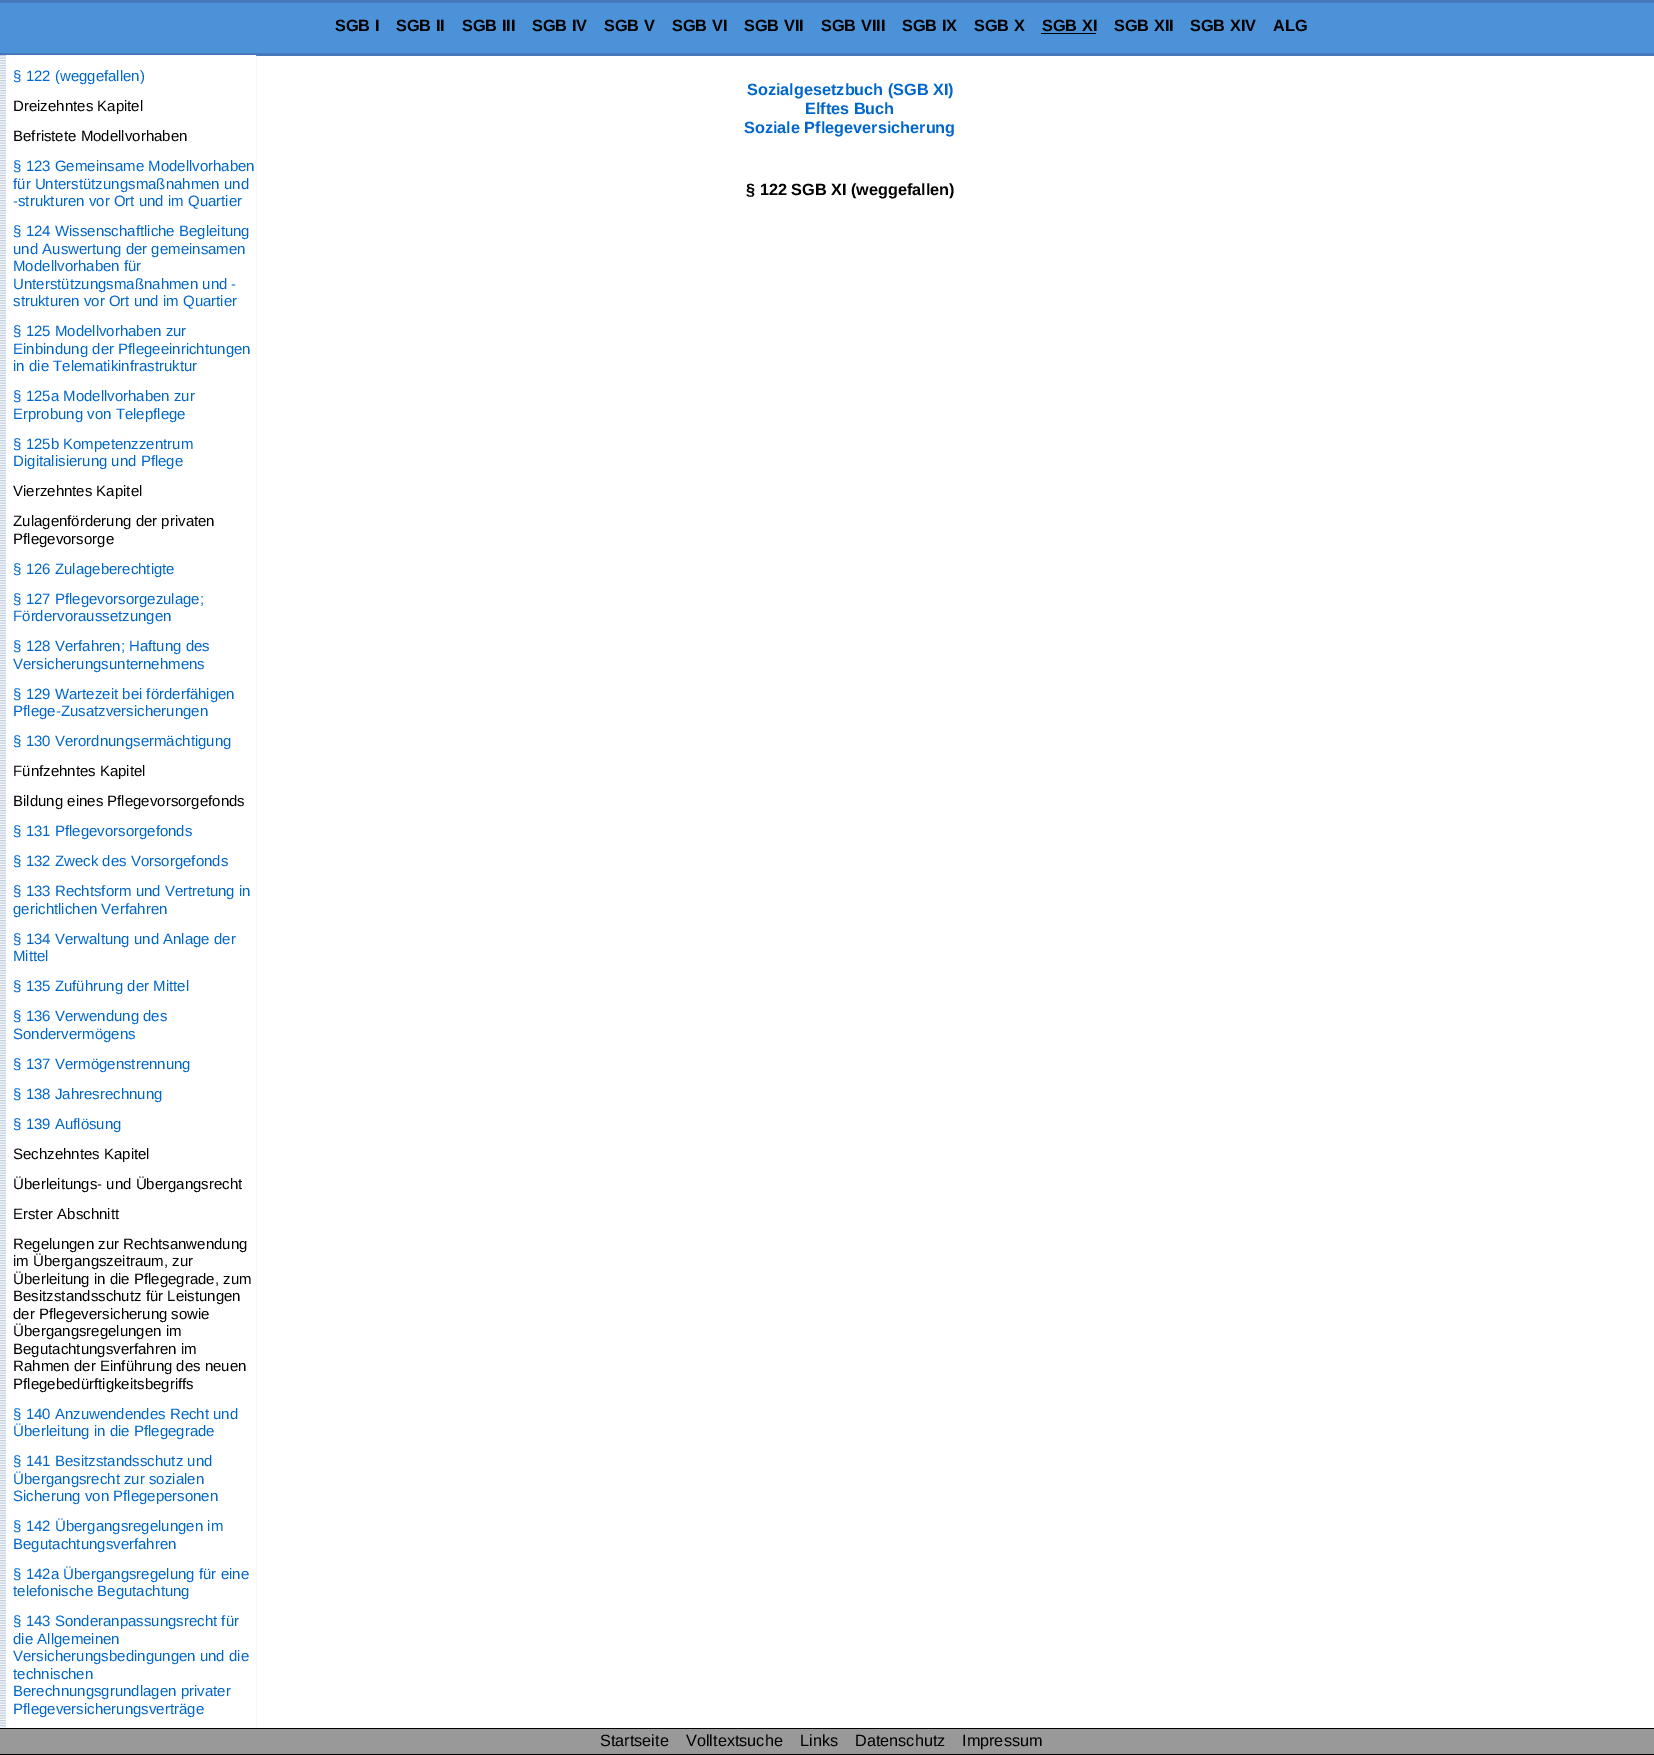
%!PS
<< /PageSize [1654 1755] >> setpagedevice
/rgb { dup -16 bitshift 255 div exch dup -8 bitshift 255 and 255 div exch 255 and 255 div setrgbcolor } def
/font { [ exch dup neg 0 0 3 -1 roll 0 0 ] selectfont } def
/text { moveto show } def
/picture { 5 dict begin { /h /w /y /x /name } { exch def } forall
  gsave x y translate w h scale
  w h 8 [w 0 0 h 0 0] name (r) file false 3 colorimage grestore end } def
0 1755 translate 1 -1 scale
4 setmiterlimit
/s1 { /LiberationSans-Bold 16.25 font 16#000000 rgb } def
/s2 { /LiberationSans-Regular 15 font 16#0066CC rgb } def
/s3 { /LiberationSans-Regular 15 font 16#000000 rgb } def
/s4 { /LiberationSans-Bold 16.25 font 16#0066CC rgb } def
/s5 { /LiberationSans-Regular 16.25 font 16#000000 rgb } def
16#FFFFFF rgb
0 0 1654 1755 rectfill
16#4B92D9 rgb
0 3 1654 50 rectfill
16#447ABB rgb
0 0 1654 3 rectfill
0 53 1654 3 rectfill
s1
(SGB I) 335 31 text
(SGB II) 396 31 text
(SGB III) 462 31 text
(SGB IV) 532 31 text
(SGB V) 604 31 text
(SGB VI) 672 31 text
(SGB VII) 744 31 text
(SGB VIII) 821 31 text
(SGB IX) 902 31 text
(SGB X) 974 31 text
(SGB XI) 1042 31 text
1041 33 55 1 rectfill
(SGB XII) 1114 31 text
(SGB XIV) 1190 31 text
(ALG) 1273 31 text
(pic1.raw) 0 55 257 1673 picture
16#FFFFFF rgb
6 55 250 1673 rectfill
s2
(§ 122 \(weggefallen\)) 13 81 text
s3
(Dreizehntes Kapitel) 13 111 text
(Befristete Modellvorhaben) 13 141 text
s2
(§ 123 Gemeinsame Modellvorhaben) 13 171 text
(für Unterstützungsmaßnahmen und) 13 189 text
(-strukturen vor Ort und im Quartier) 13 206 text
(§ 124 Wissenschaftliche Begleitung) 13 236 text
(und Auswertung der gemeinsamen) 13 254 text
(Modellvorhaben für) 13 271 text
(Unterstützungsmaßnahmen und -) 13 289 text
(strukturen vor Ort und im Quartier) 13 306 text
(§ 125 Modellvorhaben zur) 13 336 text
(Einbindung der Pflegeeinrichtungen) 13 354 text
(in die Telematikinfrastruktur) 13 371 text
(§ 125a Modellvorhaben zur) 13 401 text
(Erprobung von Telepflege) 13 419 text
(§ 125b Kompetenzzentrum) 13 449 text
(Digitalisierung und Pflege) 13 466 text
s3
(Vierzehntes Kapitel) 13 496 text
(Zulagenförderung der privaten) 13 526 text
(Pflegevorsorge) 13 544 text
s2
(§ 126 Zulageberechtigte) 13 574 text
(§ 127 Pflegevorsorgezulage;) 13 604 text
(Fördervoraussetzungen) 13 621 text
(§ 128 Verfahren; Haftung des) 13 651 text
(Versicherungsunternehmens) 13 669 text
(§ 129 Wartezeit bei förderfähigen) 13 699 text
(Pflege-Zusatzversicherungen) 13 716 text
(§ 130 Verordnungsermächtigung) 13 746 text
s3
(Fünfzehntes Kapitel) 13 776 text
(Bildung eines Pflegevorsorgefonds) 13 806 text
s2
(§ 131 Pflegevorsorgefonds) 13 836 text
(§ 132 Zweck des Vorsorgefonds) 13 866 text
(§ 133 Rechtsform und Vertretung in) 13 896 text
(gerichtlichen Verfahren) 13 914 text
(§ 134 Verwaltung und Anlage der) 13 944 text
(Mittel) 13 961 text
(§ 135 Zuführung der Mittel) 13 991 text
(§ 136 Verwendung des) 13 1021 text
(Sondervermögens) 13 1039 text
(§ 137 Vermögenstrennung) 13 1069 text
(§ 138 Jahresrechnung) 13 1099 text
(§ 139 Auflösung) 13 1129 text
s3
(Sechzehntes Kapitel) 13 1159 text
(Überleitungs- und Übergangsrecht) 13 1189 text
(Erster Abschnitt) 13 1219 text
(Regelungen zur Rechtsanwendung) 13 1249 text
(im Übergangszeitraum, zur) 13 1266 text
(Überleitung in die Pflegegrade, zum) 13 1284 text
(Besitzstandsschutz für Leistungen) 13 1301 text
(der Pflegeversicherung sowie) 13 1319 text
(Übergangsregelungen im) 13 1336 text
(Begutachtungsverfahren im) 13 1354 text
(Rahmen der Einführung des neuen) 13 1371 text
(Pflegebedürftigkeitsbegriffs) 13 1389 text
s2
(§ 140 Anzuwendendes Recht und) 13 1419 text
(Überleitung in die Pflegegrade) 13 1436 text
(§ 141 Besitzstandsschutz und) 13 1466 text
(Übergangsrecht zur sozialen) 13 1484 text
(Sicherung von Pflegepersonen) 13 1501 text
(§ 142 Übergangsregelungen im) 13 1531 text
(Begutachtungsverfahren) 13 1549 text
(§ 142a Übergangsregelung für eine) 13 1579 text
(telefonische Begutachtung) 13 1596 text
(§ 143 Sonderanpassungsrecht für) 13 1626 text
(die Allgemeinen) 13 1644 text
(Versicherungsbedingungen und die) 13 1661 text
(technischen) 13 1679 text
(Berechnungsgrundlagen privater) 13 1696 text
(Pflegeversicherungsverträge) 13 1714 text
s4
(Sozialgesetzbuch \(SGB XI\)) 747 95 text
(Elftes Buch) 805 114 text
(Soziale Pflegeversicherung) 744 133 text
s1
(§ 122 SGB XI \(weggefallen\)) 746 195 text
16#999999 rgb
0 1729 1654 25 rectfill
16#000000 rgb
0 1728 1654 1 rectfill
0 1754 1654 1 rectfill
s5
(Startseite) 600 1746 text
(Volltextsuche) 686 1746 text
(Links) 800 1746 text
(Datenschutz) 855 1746 text
(Impressum) 962 1746 text
showpage
